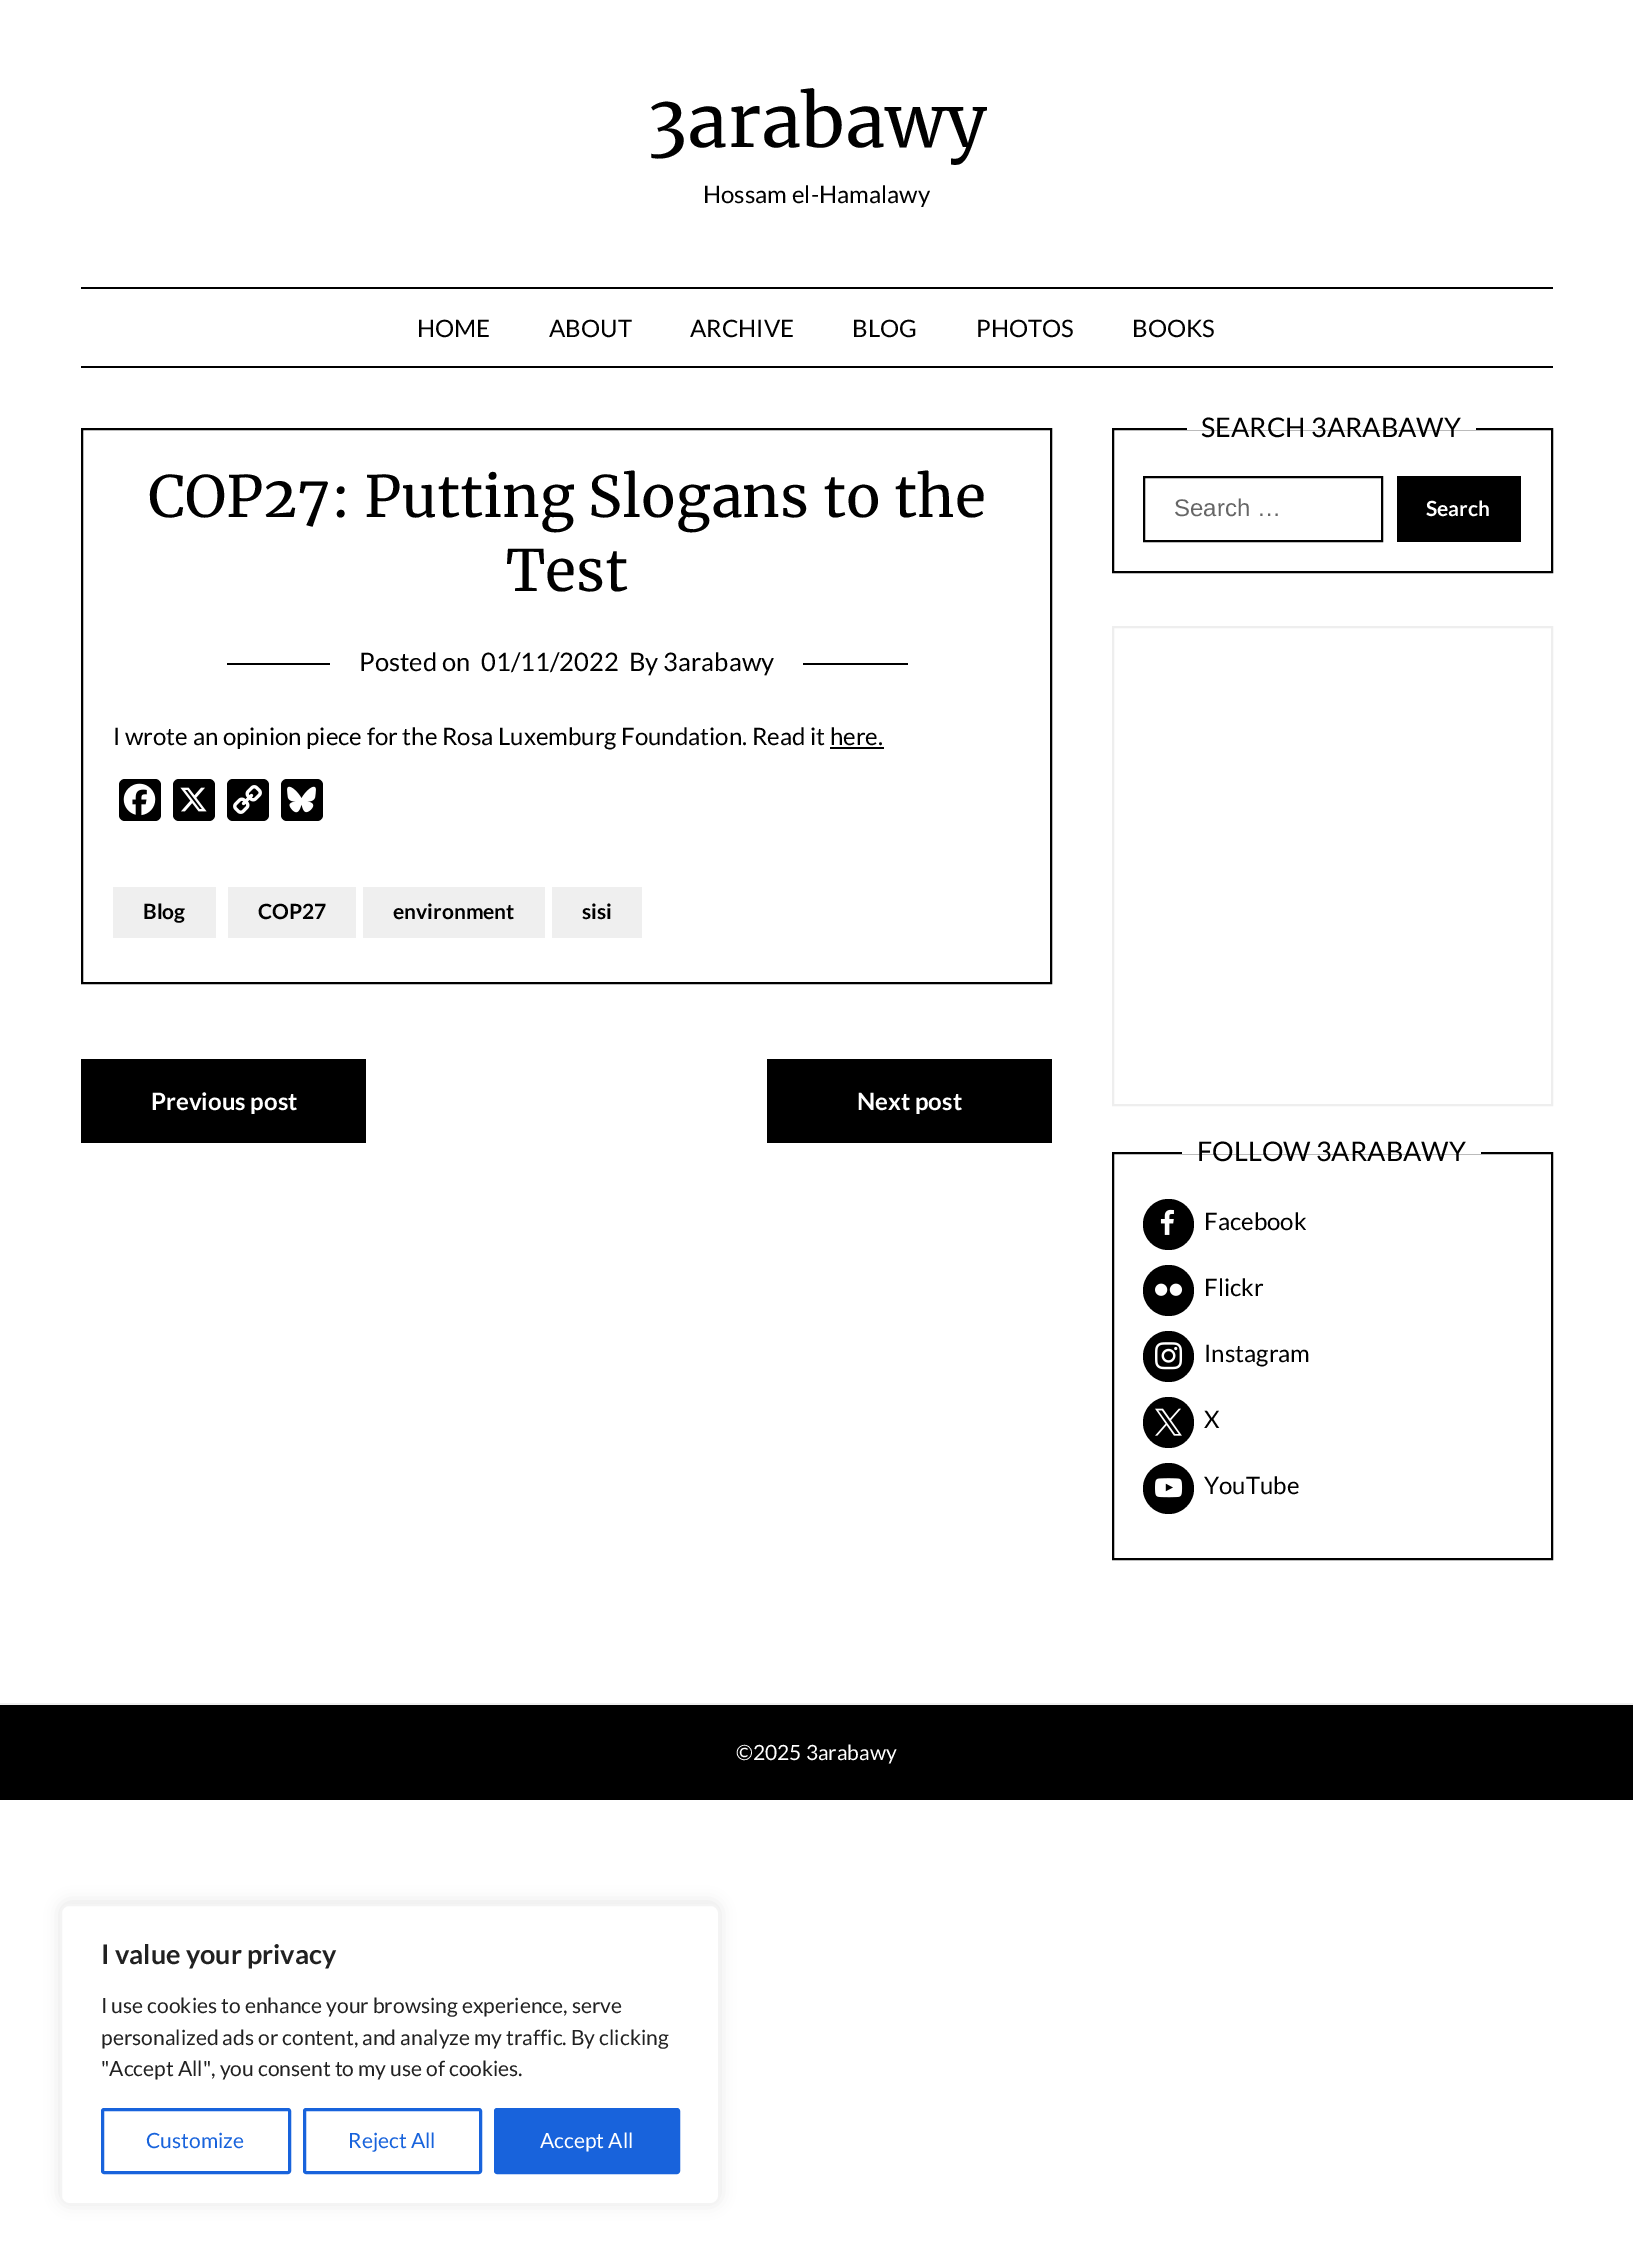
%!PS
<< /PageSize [1633 2265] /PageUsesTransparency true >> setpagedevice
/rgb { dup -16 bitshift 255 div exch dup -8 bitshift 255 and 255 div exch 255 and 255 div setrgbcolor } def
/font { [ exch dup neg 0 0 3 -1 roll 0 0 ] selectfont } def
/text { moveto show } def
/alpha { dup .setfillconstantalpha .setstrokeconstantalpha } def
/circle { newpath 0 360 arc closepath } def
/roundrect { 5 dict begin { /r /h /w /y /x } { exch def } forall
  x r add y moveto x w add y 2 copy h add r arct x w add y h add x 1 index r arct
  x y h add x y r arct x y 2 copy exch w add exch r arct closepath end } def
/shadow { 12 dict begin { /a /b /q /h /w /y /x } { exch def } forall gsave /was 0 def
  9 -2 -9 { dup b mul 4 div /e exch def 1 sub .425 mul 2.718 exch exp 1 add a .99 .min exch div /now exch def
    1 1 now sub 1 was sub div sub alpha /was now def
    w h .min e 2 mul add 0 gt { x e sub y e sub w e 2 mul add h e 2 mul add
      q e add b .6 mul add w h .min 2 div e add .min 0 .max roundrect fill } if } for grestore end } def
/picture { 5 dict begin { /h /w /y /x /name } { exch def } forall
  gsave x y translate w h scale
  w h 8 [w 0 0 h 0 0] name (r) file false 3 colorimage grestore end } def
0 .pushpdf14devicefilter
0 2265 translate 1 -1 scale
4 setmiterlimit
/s1 { /Merriweather-Regular 72 font 16#000000 rgb } def
/s2 { /Lato-Regular 24 font 16#000000 rgb } def
/s3 { /Merriweather-Regular 57 font 16#000000 rgb } def
/s4 { /Lato-Regular 25.5 font 16#000000 rgb } def
/s5 { /Lato-Bold 21 font 16#000000 rgb } def
/s6 { /Lato-Bold 24 font 16#FFFFFF rgb } def
/s7 { /Lato-Regular 27 font 16#000000 rgb } def
/s8 { /LiberationSans-Regular 24 font 16#666666 rgb } def
/s9 { /Lato-Bold 21 font 16#FFFFFF rgb } def
/s10 { /Lato-Regular 21 font 16#FFFFFF rgb } def
/s11 { /Lato-Bold 27 font 16#212121 rgb } def
/s12 { /Lato-Regular 21 font 16#212121 rgb } def
/s13 { /Lato-Regular 21 font 16#1863DC rgb } def
16#FFFFFF rgb
0 0 1633 2265 rectfill
s1
(3arabawy) 647 147 text
s2
(Hossam el-Hamalawy) 703 203 text
81 287 1472 2 rectfill
81 366 1472 2 rectfill
(HOME) 417 337 text
(ABOUT) 549 337 text
(ARCHIVE) 690 337 text
(BLOG) 852 337 text
(PHOTOS) 976 337 text
(BOOKS) 1132 337 text
2 setlinewidth
82 429 969 554 rectstroke
s3
(COP27: Putting Slogans to the) 148 517 text
(Test) 506 591 text
227 663 681 2 rectfill
16#FFFFFF rgb
330 663 473 2 rectfill
s4
(Posted on) 359 671 text
(01/11/2022) 481 671 text
(By 3arabawy) 629 671 text
s2
(I wrote an opinion piece for the Rosa Luxemburg Foundation. Read it here.) 113 745 text
830 747 54 2 rectfill
119 779 42 42 6 roundrect fill
(pic1.raw) 123 783 33 33 picture
173 779 42 42 6 roundrect fill
(pic2.raw) 180 787 27 25 picture
227 779 42 42 6 roundrect fill
(pic3.raw) 233 785 29 29 picture
281 779 42 42 6 roundrect fill
(pic4.raw) 287 786 29 27 picture
16#EFEFEF rgb
113 887 103 51 rectfill
s5
(Blog) 143 919 text
16#EFEFEF rgb
228 887 128 51 rectfill
s5
(COP27) 258 919 text
16#EFEFEF rgb
363 887 182 51 rectfill
s5
(environment) 393 919 text
16#EFEFEF rgb
552 887 90 51 rectfill
s5
(sisi) 582 919 text
81 1059 285 84 rectfill
s6
(Previous post) 151 1110 text
16#000000 rgb
767 1059 285 84 rectfill
s6
(Next post) 857 1110 text
16#000000 rgb
1113 429 439 143 rectstroke
16#FFFFFF rgb
1187 428 289 2 rectfill
s7
(SEARCH 3ARABAWY) 1201 437 text
1144 477 238 64 rectstroke
s8
(Search …) 1174 516 text
16#000000 rgb
1397 476 124 66 rectfill
s9
(Search) 1426 516 text
16#EEEEEE rgb
1113 627 439 478 rectstroke
16#000000 rgb
1113 1153 439 406 rectstroke
16#FFFFFF rgb
1182 1152 299 2 rectfill
s7
(FOLLOW 3ARABAWY) 1197 1161 text
1168.5 1224.5 25.5 circle fill
(pic5.raw) 1160 1209 14 26 picture
s2
(Facebook) 1204 1230 text
1168.5 1290.5 25.5 circle fill
(pic6.raw) 1155 1283 28 13 picture
(Flickr) 1204 1296 text
1168.5 1356.5 25.5 circle fill
(pic7.raw) 1155 1342 28 28 picture
(Instagram) 1204 1362 text
1168.5 1422.5 25.5 circle fill
(pic8.raw) 1155 1408 27 28 picture
(X) 1204 1428 text
1168.5 1488.5 25.5 circle fill
(pic9.raw) 1155 1478 28 20 picture
(YouTube) 1204 1494 text
0 1705 1633 95 rectfill
16#EFEFEF rgb
0 1703 1633 2 rectfill
s10
(©2025 3arabawy) 736 1760 text
16#ACABAB rgb
60 1902 660 302 9 7.5 0.3 shadow
16#FFFFFF rgb
61 1905 658 299 8 roundrect gsave fill grestore
16#F4F4F4 rgb
stroke
s11
(I value your privacy) 101 1964 text
s12
(I use cookies to enhance your browsing experience, serve) 101 2013 text
(personalized ads or content, and analyze my traffic. By clicking) 101 2045 text
("Accept All", you consent to my use of cookies.) 101 2076 text
16#1863DC rgb
3 setlinewidth
102.5 2109.5 187 63 1.5 roundrect stroke
(Customize) 146 2148 text
304.5 2109.5 176 63 1.5 roundrect stroke
(Reject All) 348 2148 text
495.5 2109.5 183 63 1.5 roundrect gsave fill grestore
stroke
s10
(Accept All) 540 2148 text
.poppdf14devicefilter showpage
